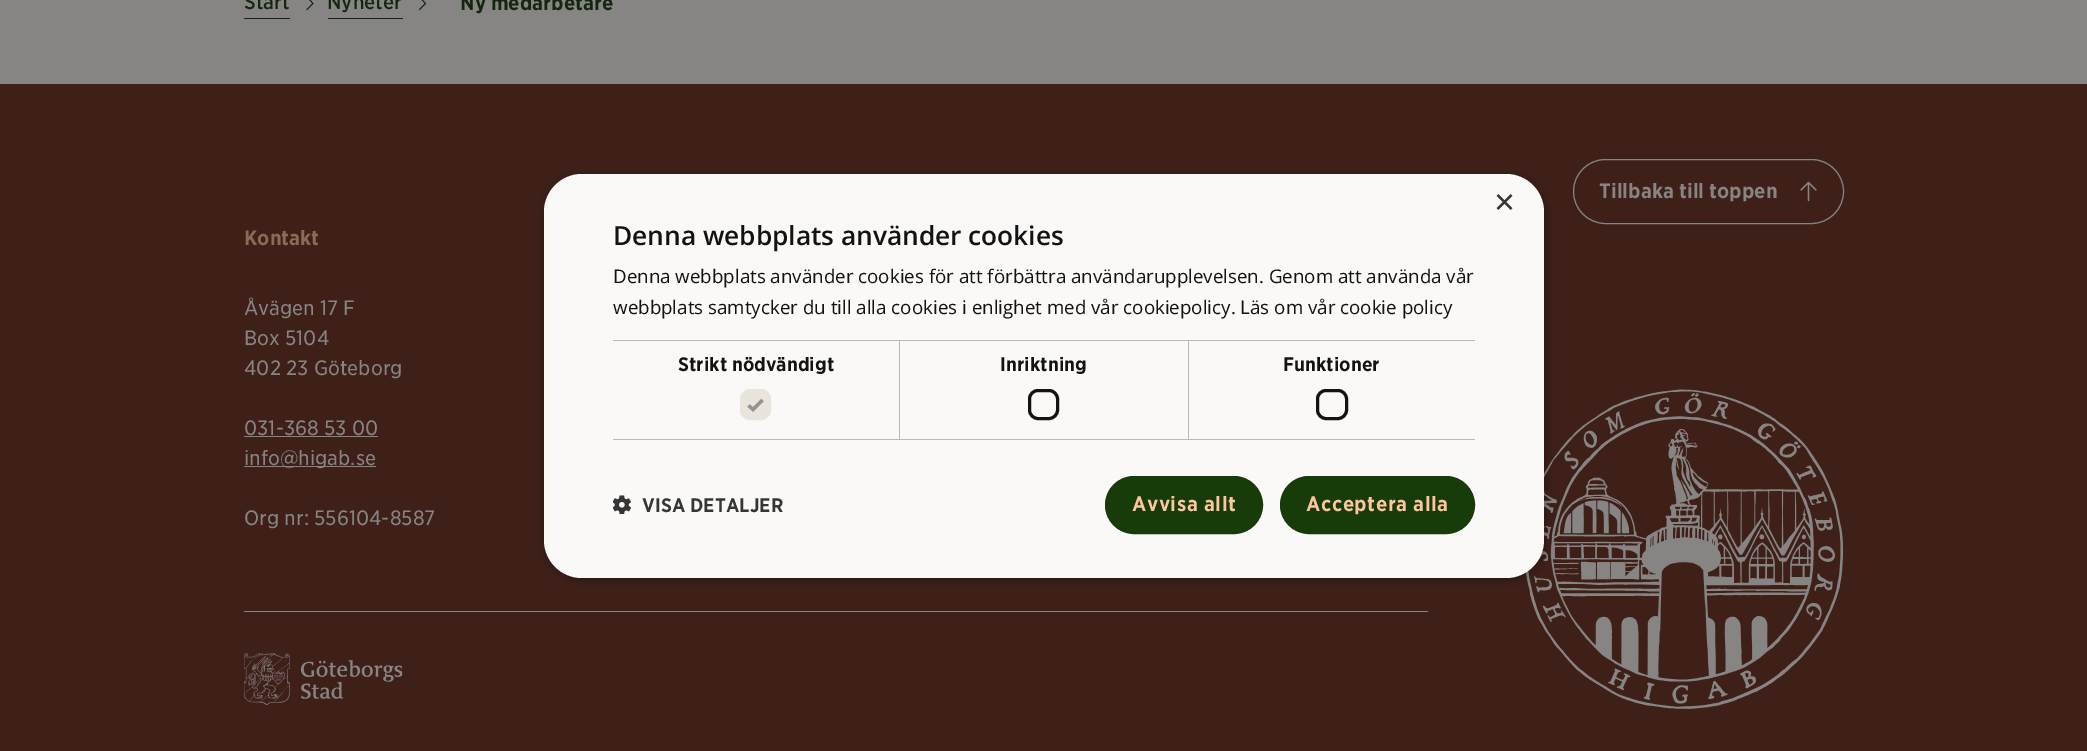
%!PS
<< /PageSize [2087 751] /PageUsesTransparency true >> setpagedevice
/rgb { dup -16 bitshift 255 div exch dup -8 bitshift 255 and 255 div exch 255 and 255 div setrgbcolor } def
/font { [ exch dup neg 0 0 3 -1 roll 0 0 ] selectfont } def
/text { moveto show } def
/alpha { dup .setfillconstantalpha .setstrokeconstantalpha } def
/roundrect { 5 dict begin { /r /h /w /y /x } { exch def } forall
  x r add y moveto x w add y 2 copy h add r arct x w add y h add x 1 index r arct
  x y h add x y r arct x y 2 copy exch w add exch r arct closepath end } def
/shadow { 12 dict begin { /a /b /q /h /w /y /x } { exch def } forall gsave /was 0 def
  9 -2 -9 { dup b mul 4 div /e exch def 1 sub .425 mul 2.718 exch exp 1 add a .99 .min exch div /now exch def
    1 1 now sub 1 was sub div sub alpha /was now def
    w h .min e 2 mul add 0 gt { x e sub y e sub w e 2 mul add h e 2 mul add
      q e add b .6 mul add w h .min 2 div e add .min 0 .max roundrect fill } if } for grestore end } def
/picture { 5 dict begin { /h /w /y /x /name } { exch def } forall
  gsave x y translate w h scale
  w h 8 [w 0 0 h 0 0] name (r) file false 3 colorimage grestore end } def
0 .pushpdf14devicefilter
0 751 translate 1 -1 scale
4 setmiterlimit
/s1 { /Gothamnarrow-Medium 20 font 16#14270E rgb } def
/s2 { /Gothamnarrow-Bold 20 font 16#14270E rgb } def
/s3 { /Gothamnarrow-Bold 20 font 16#868584 rgb } def
/s4 { /Gothamnarrow-Bold 20 font 16#886C57 rgb } def
/s5 { /Gothamnarrow-Regular 20 font 16#868584 rgb } def
/s6 { /LiberationSans-Regular 36 font 16#363635 rgb } def
/s7 { /OpenSans-SemiBold 26.25 font 16#131313 rgb } def
/s8 { /OpenSans-Regular 18.75 font 16#131313 rgb } def
/s9 { /Gothamnarrow-Bold 18.75 font 16#131313 rgb } def
/s10 { /Gothamnarrow-Bold 18.75 font 16#363635 rgb } def
16#868584 rgb
0 0 2087 751 rectfill
16#14270E rgb
244 18 46 1 rectfill
s1
(Start) 244 9 text
0.9 setlinewidth
1 setlinecap
1 setlinejoin
307 -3 moveto 313 3.5 lineto 307 9.5 lineto stroke
328 18 75 1 rectfill
(Nyheter) 327 9 text
419.5 -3 moveto 425.5 3.5 lineto 419.5 9.5 lineto stroke
s2
(Ny medarbetare) 460 10 text
16#3F2019 rgb
0 84 2087 667 rectfill
16#868584 rgb
1 setlinewidth
0 setlinecap
0 setlinejoin
1573.5 159.5 270 64 32 roundrect stroke
(Tillbaka till toppen) 1599 198 text
1.2 setlinewidth
1 setlinecap
1 setlinejoin
1808.5 200.5 moveto 1808.5 182.5 lineto 1801 190 moveto 1808.5 182.5 lineto 1816 190 lineto stroke
244 611 1184 1 rectfill
s4
(Kontakt) 244 245 text
s5
(Åvägen 17 F) 244 315 text
(Box 5104) 244 345 text
(402 23 Göteborg) 244 375 text
(031-368 53 00) 244 435 text
244 436 134 1 rectfill
244 466 132 1 rectfill
(info@higab.se) 244 465 text
(Org nr: 556104-8587) 244 525 text
(pic1.raw) 244 653 159 52 picture
(pic2.raw) 1525 389 319 320 picture
16#000000 rgb
545 176 1000 404 38 5 0.35 shadow
16#FAF9F7 rgb
544 174 1000 404 38 roundrect fill
s6
(×) 1494 214 text
s7
(Denna webbplats använder cookies) 613 245 text
s8
(Denna webbplats använder cookies för att förbättra användarupplevelsen. Genom att använda vår) 613 283 text
(webbplats samtycker du till alla cookies i enlighet med vår cookiepolicy. Läs om vår cookie policy) 613 314 text
16#B9B9B9 rgb
613 340 862 1 rectfill
899 340 1 100 rectfill
613 439 287 1 rectfill
s9
(Strikt nödvändigt) 678 371 text
16#E9E5DD rgb
741.5 390.5 28 28 8.5 roundrect gsave fill grestore
3 setlinewidth
0 setlinecap
0 setlinejoin
stroke
16#959390 rgb
3.3 setlinewidth
748.5 405.5 moveto 753 409.5 lineto 762.5 400 lineto stroke
16#B9B9B9 rgb
1188 340 1 100 rectfill
900 439 575 1 rectfill
s9
(Inriktning) 1000 371 text
3 setlinewidth
1029.5 390.5 28 28 8.5 roundrect stroke
(Funktioner) 1283 371 text
1317.5 390.5 29 28 8.5 roundrect stroke
(pic3.raw) 613 495 18 19 picture
s10
(VISA DETALJER) 642 512 text
16#173C0A rgb
1105.5 476.5 157 57 28.5 roundrect gsave fill grestore
1 setlinewidth
stroke
/Gothamnarrow-Bold 20 font
16#FFC69D rgb
1132 511 moveto 0.5 0 (Avvisa allt) ashow
16#173C0A rgb
1280.5 476.5 194 57 28.5 roundrect gsave fill grestore
stroke
16#FFC69D rgb
1306 511 moveto 0.5 0 (Acceptera alla) ashow
.poppdf14devicefilter showpage
